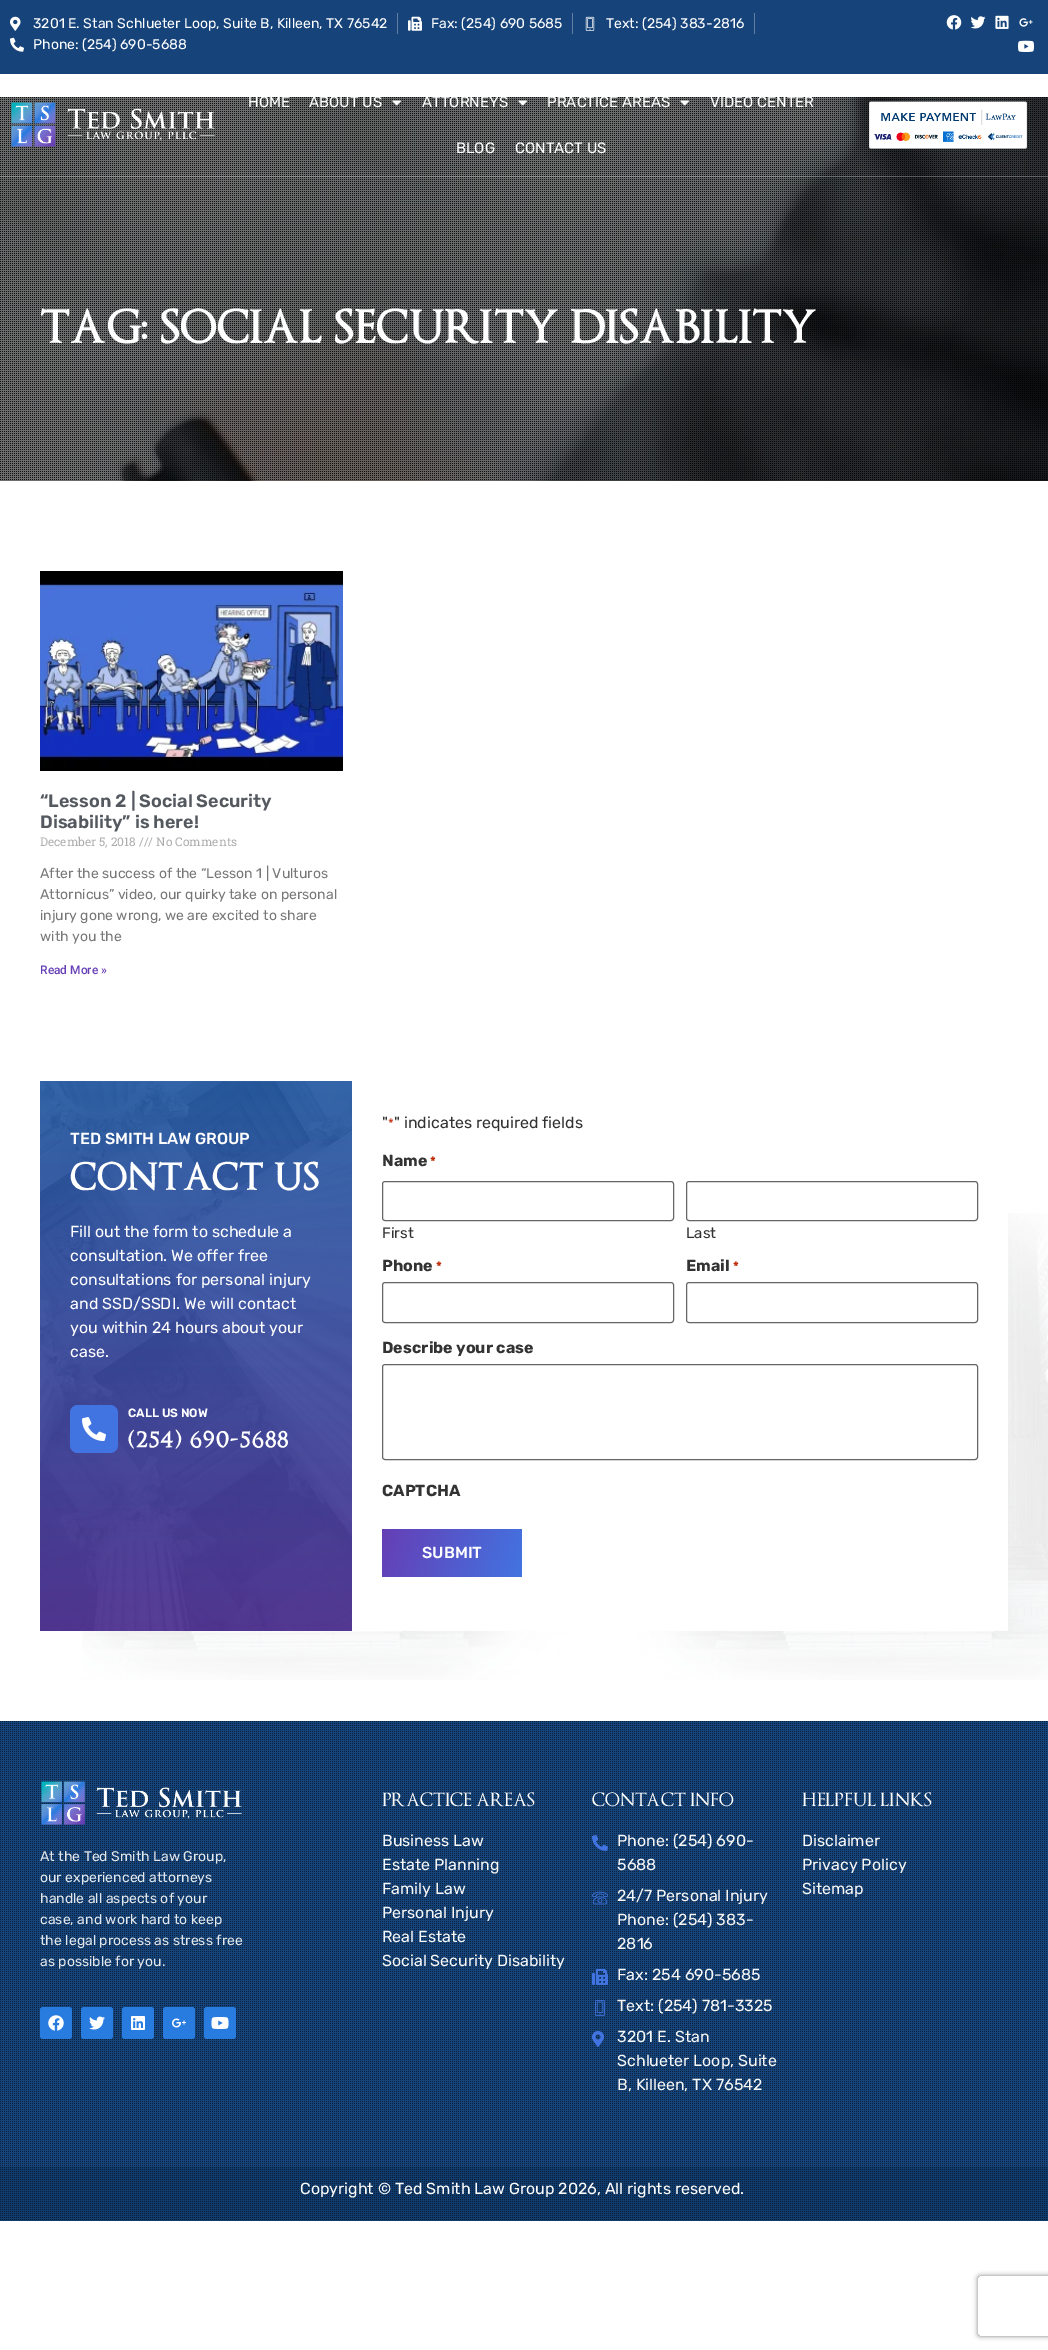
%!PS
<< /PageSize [1048 2350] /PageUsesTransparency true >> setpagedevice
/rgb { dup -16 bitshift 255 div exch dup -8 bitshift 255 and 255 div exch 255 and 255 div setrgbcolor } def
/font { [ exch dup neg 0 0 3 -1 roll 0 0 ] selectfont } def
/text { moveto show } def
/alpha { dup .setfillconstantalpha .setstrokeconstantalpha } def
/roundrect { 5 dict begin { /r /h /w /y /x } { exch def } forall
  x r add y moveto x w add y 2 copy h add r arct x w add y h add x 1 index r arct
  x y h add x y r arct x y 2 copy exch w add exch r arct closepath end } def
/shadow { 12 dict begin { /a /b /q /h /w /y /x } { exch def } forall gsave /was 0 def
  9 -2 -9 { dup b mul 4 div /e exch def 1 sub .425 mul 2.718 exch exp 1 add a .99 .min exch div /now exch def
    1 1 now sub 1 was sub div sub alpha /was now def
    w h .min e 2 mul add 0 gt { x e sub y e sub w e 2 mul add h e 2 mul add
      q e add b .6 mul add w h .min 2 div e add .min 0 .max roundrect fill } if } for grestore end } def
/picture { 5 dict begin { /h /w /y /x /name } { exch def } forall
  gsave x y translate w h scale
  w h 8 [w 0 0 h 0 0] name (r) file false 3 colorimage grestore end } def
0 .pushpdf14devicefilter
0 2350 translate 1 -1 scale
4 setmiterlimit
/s1 { /Rubik-Regular 14 font 16#FFFFFF rgb } def
/s2 { /Rubik-Regular 15 font 16#FFFFFF rgb } def
/s3 { /Rubik-SemiBold 18 font 16#54595F rgb } def
/s4 { /RobotoSlab-Regular 12 font 16#ADADAD rgb } def
/s5 { /Rubik-Regular 14 font 16#777777 rgb } def
/s6 { /Roboto-Medium 12 font 16#663EB5 rgb } def
/s7 { /Rubik-Medium 16 font 16#FFFFFF rgb } def
/s8 { /Rubik-Regular 16 font 16#FFFFFF rgb } def
/s9 { /Rubik-SemiBold 12 font 16#FFFFFF rgb } def
/s10 { /Rubik-Regular 16 font 16#333333 rgb } def
/s11 { /Rubik-Regular 13 font 16#C02B0A rgb } def
/s12 { /Rubik-Bold 16 font 16#333333 rgb } def
/s13 { /Rubik-Bold 13 font 16#C02B0A rgb } def
/s14 { /Rubik-Regular 15 font 16#333333 rgb } def
/s15 { /Rubik-Regular 14 font 16#E3E8ED rgb } def
/s16 { /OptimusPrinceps-Medium 18 font 16#FFFFFF rgb } def
/s17 { /Rubik-Regular 16 font 16#F7F7F7 rgb } def
16#FFFFFF rgb
0 0 1048 2350 rectfill
16#16447A rgb
0 0 1048 74 rectfill
(pic1.raw) 10 16 11 15 picture
s1
(3201 E. Stan Schlueter Loop, Suite B, Killeen, TX 76542) 33 28 text
16#627EA0 rgb
397 13 1 21 rectfill
(pic2.raw) 408 16 14 15 picture
s1
(Fax: \(254\) 690 5685) 431 28 text
16#627EA0 rgb
572 13 1 21 rectfill
(pic3.raw) 585 16 10 15 picture
s1
(Text: \(254\) 383-2816) 606 28 text
16#627EA0 rgb
754 13 1 21 rectfill
(pic4.raw) 10 37 14 15 picture
s1
(Phone: \(254\) 690-5688) 33 49 text
(pic5.raw) 946 15 16 15 picture
(pic6.raw) 970 16 16 13 picture
(pic7.raw) 995 15 14 14 picture
(pic8.raw) 1019 18 14 9 picture
(pic9.raw) 1018 40 16 12 picture
(pic15.raw) 0 97 1048 384 picture
(pic16.raw) 0 97 1047 383 picture
0.26 alpha
16#FCFCFC rgb
0 176 1048 1 rectfill
1 alpha
(pic10.raw) 11 102 204 45 picture
s2
(HOME) 248 107 text
(ABOUT US) 309 107 text
(pic11.raw) 392 100 9 6 picture
(ATTORNEYS) 422 107 text
(pic12.raw) 518 100 9 6 picture
(PRACTICE AREAS) 547 107 text
(pic13.raw) 680 100 9 6 picture
(VIDEO CENTER) 710 107 text
(BLOG) 456 153 text
(CONTACT US) 515 153 text
(pic14.raw) 869 101 158 48 picture
/OptimusPrinceps-Bold 44 font
40 343 moveto 1 0 (TAG: SOCIAL SECURITY DISABILITY) ashow
(pic17.raw) 40 571 303 200 picture
s3
(“Lesson 2 | Social Security) 40 807 text
(Disability” is here!) 40 828 text
s4
(December 5, 2018 /// No Comments) 40 846 text
s5
(After the success of the “Lesson 1 | Vulturos) 40 878 text
(Attornicus” video, our quirky take on personal) 40 899 text
(injury gone wrong, we are excited to share) 40 920 text
(with you the) 40 941 text
s6
(Read More ») 40 974 text
(pic20.raw) 82 1213 966 467 picture
(pic18.raw) 40 1081 312 550 picture
s7
(TED SMITH LAW GROUP) 70 1144 text
/OptimusPrinceps-Bold 36 font
70 1190 moveto 1 0 (CONTACT US) ashow
s8
(Fill out the form to schedule a) 70 1237 text
(consultation. We offer free) 70 1261 text
(consultations for personal injury) 70 1285 text
(and SSD/SSDI. We will contact) 70 1309 text
(you within 24 hours about your) 70 1333 text
(case.) 70 1357 text
16#4274E1 rgb
70 1405 48 48 8 roundrect fill
(pic19.raw) 82 1417 24 24 picture
s9
(CALL US NOW) 128 1417 text
/OptimusPrinceps-Bold 26 font
128 1449 moveto 1.75 0 (\(254\) 690-5688) ashow
352 1213 656 418 rectfill
s10
(") 382 1128 text
s11
(*) 388 1128 text
s10
(" indicates required fields) 394 1128 text
s12
(Name) 382 1166 text
s13
(*) 430 1166 text
16#666666 rgb
382.5 1181.5 291 39 2.5 roundrect stroke
s14
(First) 382 1238 text
16#666666 rgb
686.5 1181.5 291 39 2.5 roundrect stroke
s14
(Last) 686 1238 text
s12
(Phone) 382 1271 text
s13
(*) 436 1271 text
16#666666 rgb
382.5 1282.5 291 40 2.5 roundrect stroke
s12
(Email) 686 1271 text
s13
(*) 733 1271 text
16#666666 rgb
686.5 1282.5 291 40 2.5 roundrect stroke
s12
(Describe your case) 382 1353 text
16#666666 rgb
382.5 1364.5 595 95 2.5 roundrect stroke
s12
(CAPTCHA) 382 1496 text
gsave
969 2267 moveto 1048 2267 lineto 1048 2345 lineto 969 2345 lineto closepath 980 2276 moveto 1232 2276 lineto 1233 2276 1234 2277 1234 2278 curveto 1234 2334 lineto 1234 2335 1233 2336 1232 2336 curveto 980 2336 lineto 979 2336 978 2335 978 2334 curveto 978 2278 lineto 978 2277 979 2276 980 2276 curveto closepath eoclip newpath
16#808080 rgb
978 2276 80 60 2 2.5 1 shadow
grestore
gsave 382 1529 140 48 3 roundrect clip newpath
<< /ShadingType 2 /ColorSpace /DeviceRGB /Coords [523 1575 381 1531] /Extend [true true] /Function << /FunctionType 2 /Domain [0 1] /C0 [0.259 0.455 0.882] /C1 [0.4 0.243 0.71] /N 1 >> >> shfill grestore
s7
(SUBMIT) 422 1558 text
16#16447A rgb
0 1721 1048 446 rectfill
(pic21.raw) 0 1721 1047 445 picture
(pic22.raw) 41 1781 201 44 picture
s15
(At the Ted Smith Law Group,) 40 1861 text
(our experienced attorneys) 40 1882 text
(handle all aspects of your) 40 1903 text
(case, and work hard to keep) 40 1924 text
(the legal process as stress free) 40 1945 text
(as possible for you.) 40 1966 text
16#287CDF rgb
40 2007 32 32 3 roundrect fill
(pic23.raw) 48 2015 16 16 picture
81 2007 32 32 3 roundrect fill
(pic24.raw) 89 2016 16 14 picture
122 2007 32 32 3 roundrect fill
(pic25.raw) 131 2016 14 14 picture
163 2007 32 32 3 roundrect fill
(pic26.raw) 172 2018 14 10 picture
204 2007 32 32 3 roundrect fill
(pic27.raw) 211 2017 18 12 picture
s16
(PRACTICE AREAS) 382 1806 text
s17
(Business Law) 382 1846 text
(Estate Planning) 382 1870 text
(Family Law) 382 1894 text
(Personal Injury) 382 1918 text
(Real Estate) 382 1942 text
(Social Security Disability) 382 1966 text
s16
(CONTACT INFO) 592 1806 text
(pic28.raw) 592 1835 16 16 picture
s17
(Phone: \(254\) 690-) 617 1846 text
(5688) 617 1870 text
(pic29.raw) 592 1891 16 14 picture
(24/7 Personal Injury) 617 1901 text
(Phone: \(254\) 383-) 617 1925 text
(2816) 617 1949 text
(pic30.raw) 592 1969 16 16 picture
(Fax: 254 690-5685) 617 1980 text
(pic31.raw) 595 2000 10 16 picture
(Text: \(254\) 781-3325) 617 2011 text
(pic32.raw) 592 2031 12 16 picture
(3201 E. Stan) 617 2042 text
(Schlueter Loop, Suite) 617 2066 text
(B, Killeen, TX 76542) 617 2090 text
s16
(HELPFUL LINKS) 802 1806 text
s17
(Disclaimer) 802 1846 text
(Privacy Policy) 802 1870 text
(Sitemap) 802 1894 text
16#113B6D rgb
0 2167 1048 54 rectfill
(pic33.raw) 0 2167 1047 53 picture
s8
(Copyright © Ted Smith Law Group 2026, All rights reserved.) 300 2194 text
.poppdf14devicefilter showpage
